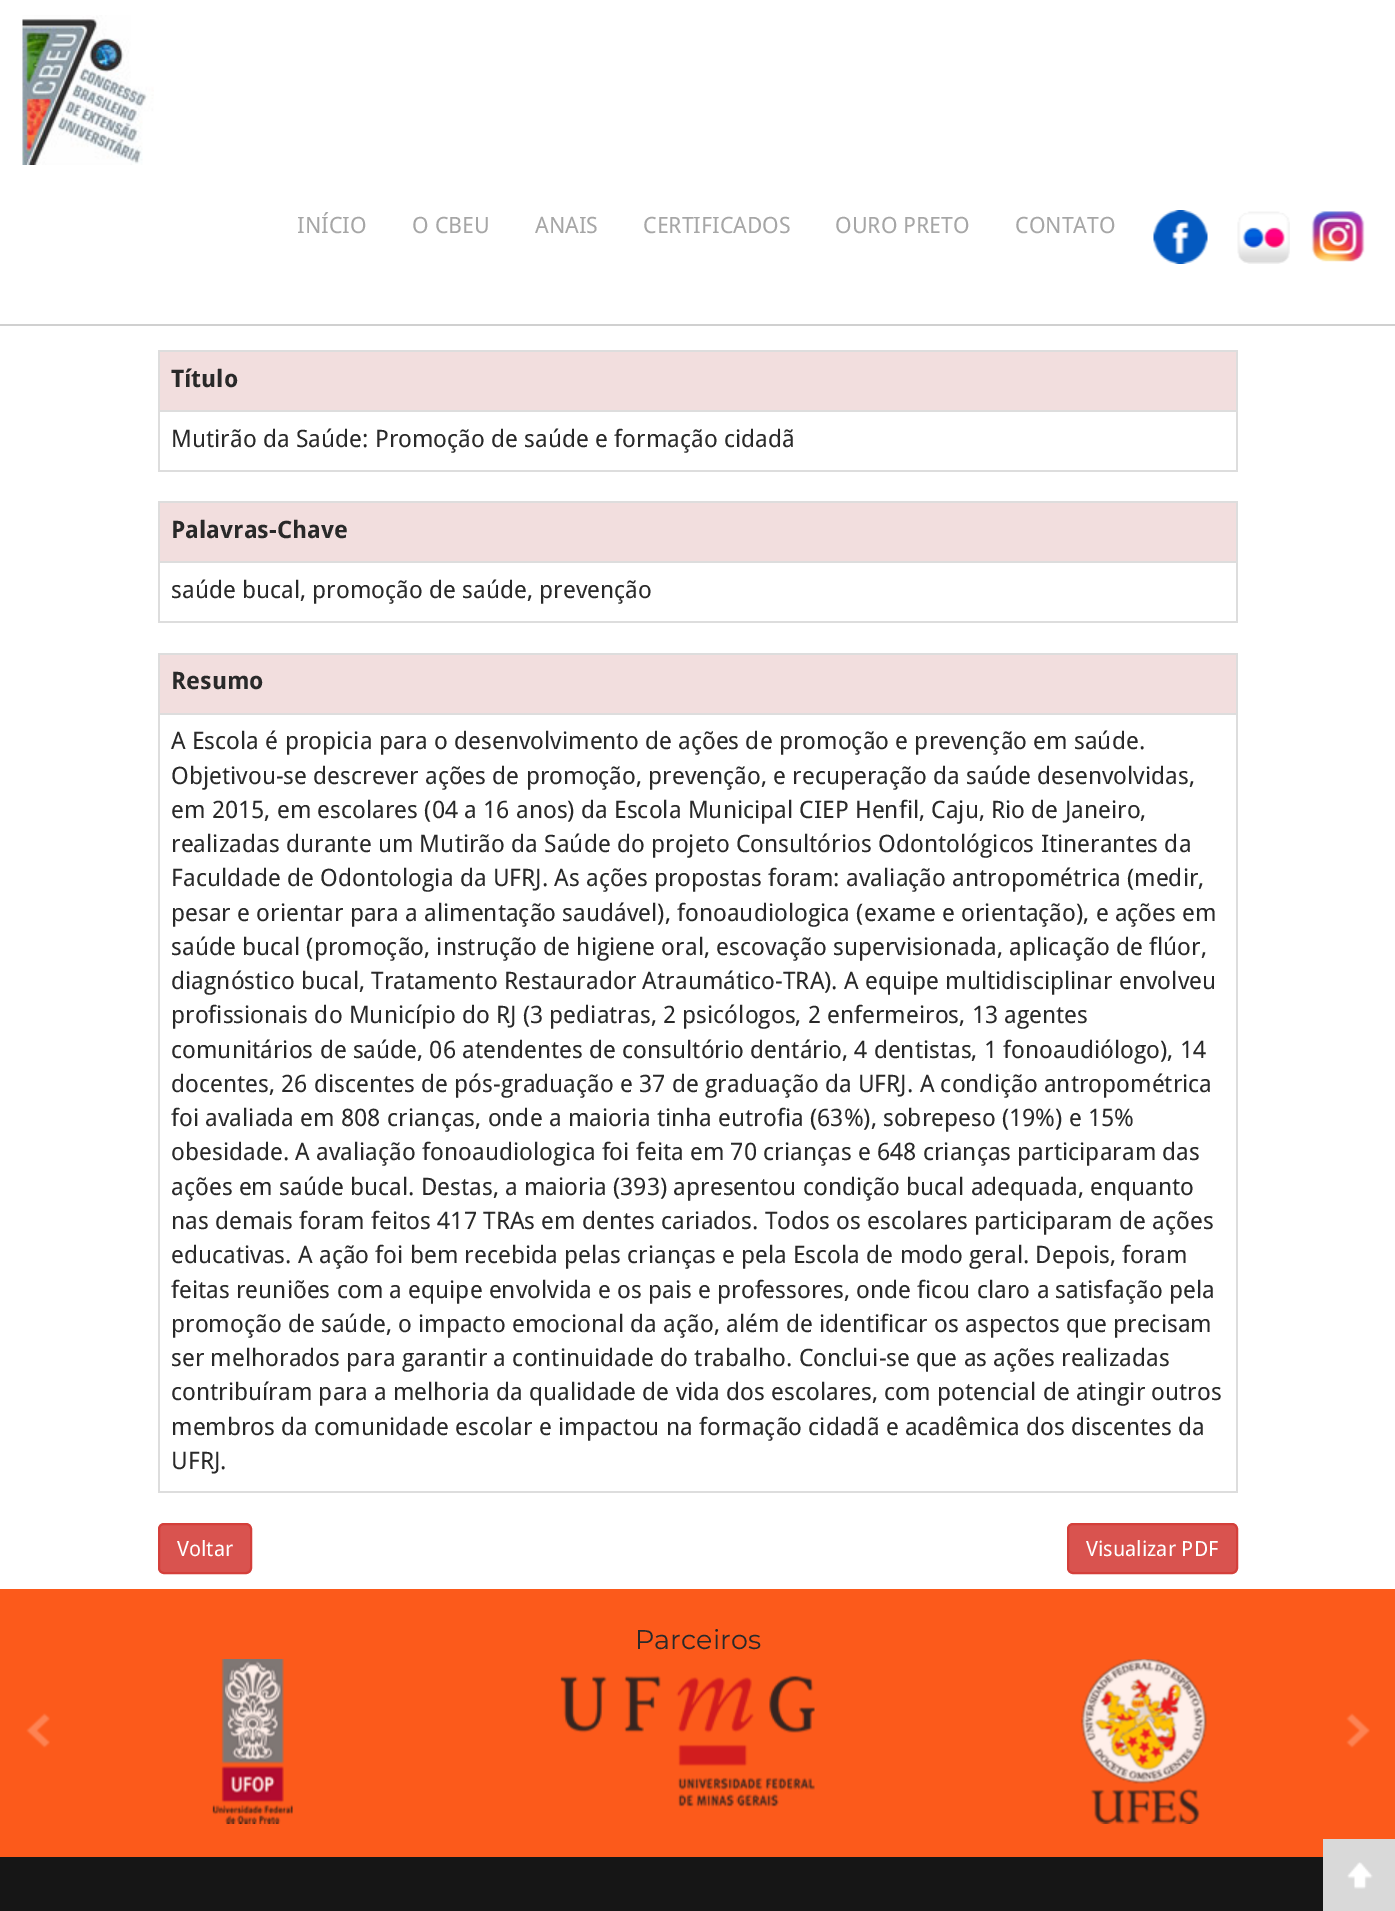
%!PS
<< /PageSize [1395 1911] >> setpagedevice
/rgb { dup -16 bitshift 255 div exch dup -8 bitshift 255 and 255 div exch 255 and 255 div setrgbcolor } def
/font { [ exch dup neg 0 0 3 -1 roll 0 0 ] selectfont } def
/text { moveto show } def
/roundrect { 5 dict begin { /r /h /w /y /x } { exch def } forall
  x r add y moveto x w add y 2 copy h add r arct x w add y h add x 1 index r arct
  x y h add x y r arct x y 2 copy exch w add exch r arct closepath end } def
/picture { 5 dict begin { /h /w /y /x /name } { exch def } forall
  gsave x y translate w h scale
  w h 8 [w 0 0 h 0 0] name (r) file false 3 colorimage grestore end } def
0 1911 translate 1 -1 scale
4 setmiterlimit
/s1 { /DroidSans-Regular 22.5 font 16#A6A6A6 rgb } def
/s2 { /DroidSans-Bold 24 font 16#292929 rgb } def
/s3 { /DroidSans-Regular 24 font 16#292929 rgb } def
/s4 { /DroidSans-Regular 21 font 16#FFFFFF rgb } def
/s5 { /Montserrat-Regular 27 font 16#292929 rgb } def
16#FFFFFF rgb
0 0 1395 1911 rectfill
16#D0D0D0 rgb
0 324 1395 2 rectfill
(pic1.raw) 22 15 132 150 picture
s1
(INÍCIO) 297 233 text
(O CBEU) 412 233 text
(ANAIS) 535 233 text
(CERTIFICADOS) 643 233 text
(OURO PRETO) 835 233 text
(CONTATO) 1015 233 text
(pic2.raw) 1153 210 55 54 picture
(pic3.raw) 1237 211 53 53 picture
(pic4.raw) 1311 211 54 51 picture
16#DDDDDD rgb
158 350 1080 2 rectfill
1236 350 2 121 rectfill
158 470 1080 2 rectfill
158 350 2 121 rectfill
16#F2DEDE rgb
160 352 1076 58 rectfill
s2
(Título) 171 387 text
16#DDDDDD rgb
158 410 1080 2 rectfill
s3
(Mutirão da Saúde: Promoção de saúde e formação cidadã) 171 447 text
16#DDDDDD rgb
158 501 1080 2 rectfill
1236 501 2 122 rectfill
158 621 1080 2 rectfill
158 501 2 122 rectfill
16#F2DEDE rgb
160 503 1076 58 rectfill
s2
(Palavras-Chave) 171 538 text
16#DDDDDD rgb
158 561 1080 2 rectfill
s3
(saúde bucal, promoção de saúde, prevenção) 171 598 text
16#DDDDDD rgb
158 653 1080 2 rectfill
1236 653 2 840 rectfill
158 1491 1080 2 rectfill
158 653 2 840 rectfill
16#F2DEDE rgb
160 655 1076 58 rectfill
s2
(Resumo) 171 689 text
16#DDDDDD rgb
158 713 1080 2 rectfill
s3
(A Escola é propicia para o desenvolvimento de ações de promoção e prevenção em saúde.) 171 749 text
(Objetivou-se descrever ações de promoção, prevenção, e recuperação da saúde desenvolvidas,) 171 784 text
(em 2015, em escolares \(04 a 16 anos\) da Escola Municipal CIEP Henfil, Caju, Rio de Janeiro,) 171 818 text
(realizadas durante um Mutirão da Saúde do projeto Consultórios Odontológicos Itinerantes da) 171 852 text
(Faculdade de Odontologia da UFRJ. As ações propostas foram: avaliação antropométrica \(medir,) 171 886 text
(pesar e orientar para a alimentação saudável\), fonoaudiologica \(exame e orientação\), e ações em) 171 921 text
(saúde bucal \(promoção, instrução de higiene oral, escovação supervisionada, aplicação de flúor,) 171 955 text
(diagnóstico bucal, Tratamento Restaurador Atraumático-TRA\). A equipe multidisciplinar envolveu) 171 989 text
(profissionais do Município do RJ \(3 pediatras, 2 psicólogos, 2 enfermeiros, 13 agentes) 171 1023 text
(comunitários de saúde, 06 atendentes de consultório dentário, 4 dentistas, 1 fonoaudiólogo\), 14) 171 1058 text
(docentes, 26 discentes de pós-graduação e 37 de graduação da UFRJ. A condição antropométrica) 171 1092 text
(foi avaliada em 808 crianças, onde a maioria tinha eutrofia \(63%\), sobrepeso \(19%\) e 15%) 171 1126 text
(obesidade. A avaliação fonoaudiologica foi feita em 70 crianças e 648 crianças participaram das) 171 1160 text
(ações em saúde bucal. Destas, a maioria \(393\) apresentou condição bucal adequada, enquanto) 171 1195 text
(nas demais foram feitos 417 TRAs em dentes cariados. Todos os escolares participaram de ações) 171 1229 text
(educativas. A ação foi bem recebida pelas crianças e pela Escola de modo geral. Depois, foram) 171 1263 text
(feitas reuniões com a equipe envolvida e os pais e professores, onde ficou claro a satisfação pela) 171 1298 text
(promoção de saúde, o impacto emocional da ação, além de identificar os aspectos que precisam) 171 1332 text
(ser melhorados para garantir a continuidade do trabalho. Conclui-se que as ações realizadas) 171 1366 text
(contribuíram para a melhoria da qualidade de vida dos escolares, com potencial de atingir outros) 171 1400 text
(membros da comunidade escolar e impactou na formação cidadã e acadêmica dos discentes da) 171 1435 text
(UFRJ.) 171 1469 text
16#D9534F rgb
159 1524 92 49 5 roundrect gsave fill grestore
16#D43F3A rgb
2 setlinewidth
stroke
s4
(Voltar) 177 1556 text
16#D9534F rgb
1068 1524 169 49 5 roundrect gsave fill grestore
16#D43F3A rgb
stroke
s4
(Visualizar PDF) 1086 1556 text
16#FC5A1B rgb
0 1589 1395 268 rectfill
s5
(Parceiros) 635 1649 text
(pic5.raw) 212 1659 81 165 picture
(pic6.raw) 560 1675 255 132 picture
(pic7.raw) 1081 1659 126 165 picture
(pic8.raw) 26 1713 24 35 picture
(pic9.raw) 1346 1713 24 35 picture
16#161616 rgb
0 1857 1323 54 rectfill
16#D9D9D9 rgb
1323 1839 72 72 rectfill
(pic10.raw) 1347 1862 26 27 picture
showpage
